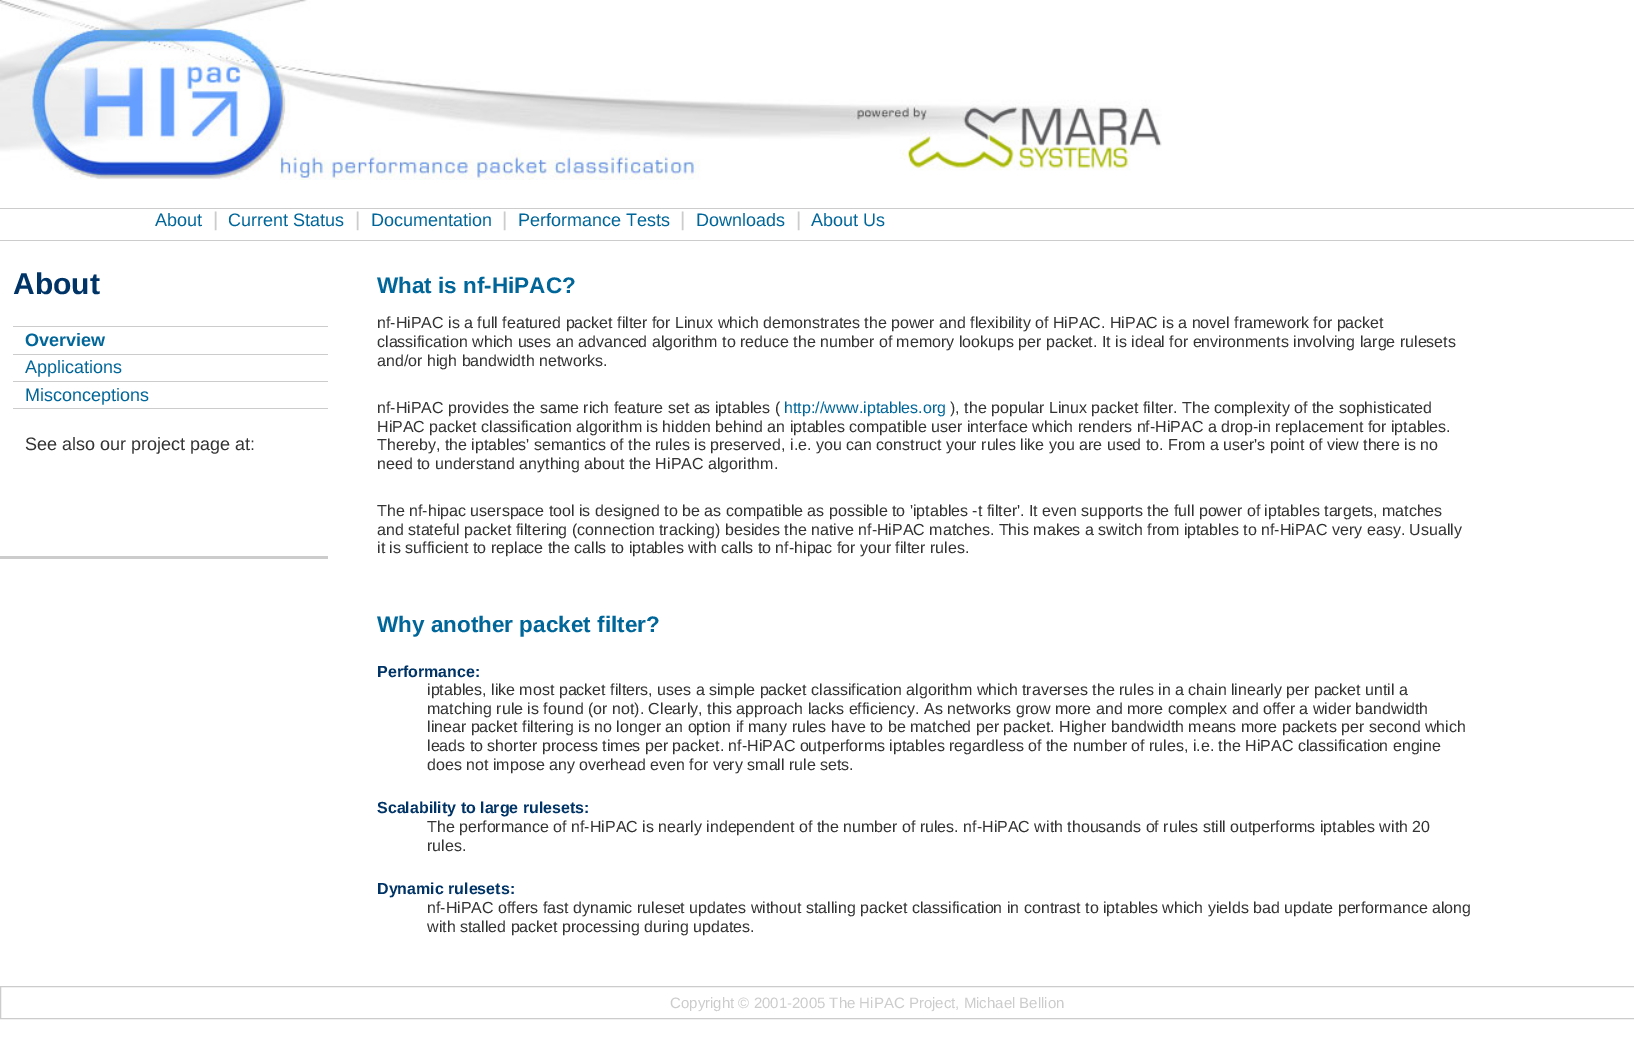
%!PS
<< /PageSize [1634 1057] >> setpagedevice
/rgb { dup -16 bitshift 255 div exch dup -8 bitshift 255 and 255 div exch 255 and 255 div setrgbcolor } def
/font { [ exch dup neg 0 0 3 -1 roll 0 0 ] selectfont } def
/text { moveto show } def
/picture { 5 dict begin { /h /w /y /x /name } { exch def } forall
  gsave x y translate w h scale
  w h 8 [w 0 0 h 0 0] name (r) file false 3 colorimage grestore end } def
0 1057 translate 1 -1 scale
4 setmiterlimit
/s1 { /LiberationSans-Regular 18 font 16#006699 rgb } def
/s2 { /LiberationSans-Regular 20 font 16#CCCCCC rgb } def
/s3 { /LiberationSans-Bold 30 font 16#003366 rgb } def
/s4 { /LiberationSans-Bold 18 font 16#006699 rgb } def
/s5 { /LiberationSans-Regular 18 font 16#333333 rgb } def
/s6 { /LiberationSans-Bold 22.5 font 16#006699 rgb } def
/s7 { /LiberationSans-Regular 16 font 16#333333 rgb } def
/s8 { /LiberationSans-Regular 16 font 16#006699 rgb } def
/s9 { /LiberationSans-Bold 16 font 16#003366 rgb } def
/s10 { /LiberationSans-Regular 15 font 16#CCCCCC rgb } def
16#FFFFFF rgb
0 0 1634 1057 rectfill
16#CCCCCC rgb
0 240 1634 1 rectfill
(pic1.raw) 0 0 1162 180 picture
0 208 1634 1 rectfill
s1
(About) 155 226 text
s2
(|) 213 226 text
s1
(Current Status) 228 226 text
s2
(|) 355 226 text
s1
(Documentation) 371 226 text
s2
(|) 502 226 text
s1
(Performance Tests) 518 226 text
s2
(|) 680 226 text
s1
(Downloads) 696 226 text
s2
(|) 796 226 text
s1
(About Us) 811 226 text
16#CCCCCC rgb
0 556 328 3 rectfill
s3
(About) 13 294 text
16#CCCCCC rgb
13 326 315 1 rectfill
s4
(Overview) 25 346 text
16#CCCCCC rgb
13 354 315 1 rectfill
s1
(Applications) 25 373 text
16#CCCCCC rgb
13 381 315 1 rectfill
s1
(Misconceptions) 25 401 text
16#CCCCCC rgb
13 408 315 1 rectfill
s5
(See also our project page at:) 25 450 text
s6
(What is nf-HiPAC?) 377 293 text
s7
(nf-HiPAC is a full featured packet filter for Linux which demonstrates the power and flexibility of HiPAC. HiPAC is a novel framework for packet) 377 328 text
(classification which uses an advanced algorithm to reduce the number of memory lookups per packet. It is ideal for environments involving large rulesets) 377 347 text
(and/or high bandwidth networks.) 377 366 text
(nf-HiPAC provides the same rich feature set as iptables \() 377 413 text
s8
(http://www.iptables.org) 784 413 text
s7
(\), the popular Linux packet filter. The complexity of the sophisticated) 950 413 text
(HiPAC packet classification algorithm is hidden behind an iptables compatible user interface which renders nf-HiPAC a drop-in replacement for iptables.) 377 432 text
(Thereby, the iptables' semantics of the rules is preserved, i.e. you can construct your rules like you are used to. From a user's point of view there is no) 377 450 text
(need to understand anything about the HiPAC algorithm.) 377 469 text
(The nf-hipac userspace tool is designed to be as compatible as possible to 'iptables -t filter'. It even supports the full power of iptables targets, matches) 377 516 text
(and stateful packet filtering \(connection tracking\) besides the native nf-HiPAC matches. This makes a switch from iptables to nf-HiPAC very easy. Usually) 377 535 text
(it is sufficient to replace the calls to iptables with calls to nf-hipac for your filter rules.) 377 553 text
s6
(Why another packet filter?) 377 632 text
s9
(Performance:) 377 677 text
s7
(iptables, like most packet filters, uses a simple packet classification algorithm which traverses the rules in a chain linearly per packet until a) 427 695 text
(matching rule is found \(or not\). Clearly, this approach lacks efficiency. As networks grow more and more complex and offer a wider bandwidth) 427 714 text
(linear packet filtering is no longer an option if many rules have to be matched per packet. Higher bandwidth means more packets per second which) 427 732 text
(leads to shorter process times per packet. nf-HiPAC outperforms iptables regardless of the number of rules, i.e. the HiPAC classification engine) 427 751 text
(does not impose any overhead even for very small rule sets.) 427 770 text
s9
(Scalability to large rulesets:) 377 813 text
s7
(The performance of nf-HiPAC is nearly independent of the number of rules. nf-HiPAC with thousands of rules still outperforms iptables with 20) 427 832 text
(rules.) 427 851 text
s9
(Dynamic rulesets:) 377 894 text
s7
(nf-HiPAC offers fast dynamic ruleset updates without stalling packet classification in contrast to iptables which yields bad update performance along) 427 913 text
(with stalled packet processing during updates.) 427 932 text
16#CCCCCC rgb
0.5 986.5 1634 32 rectstroke
s10
(Copyright © 2001-2005 The HiPAC Project, Michael Bellion) 670 1008 text
showpage
